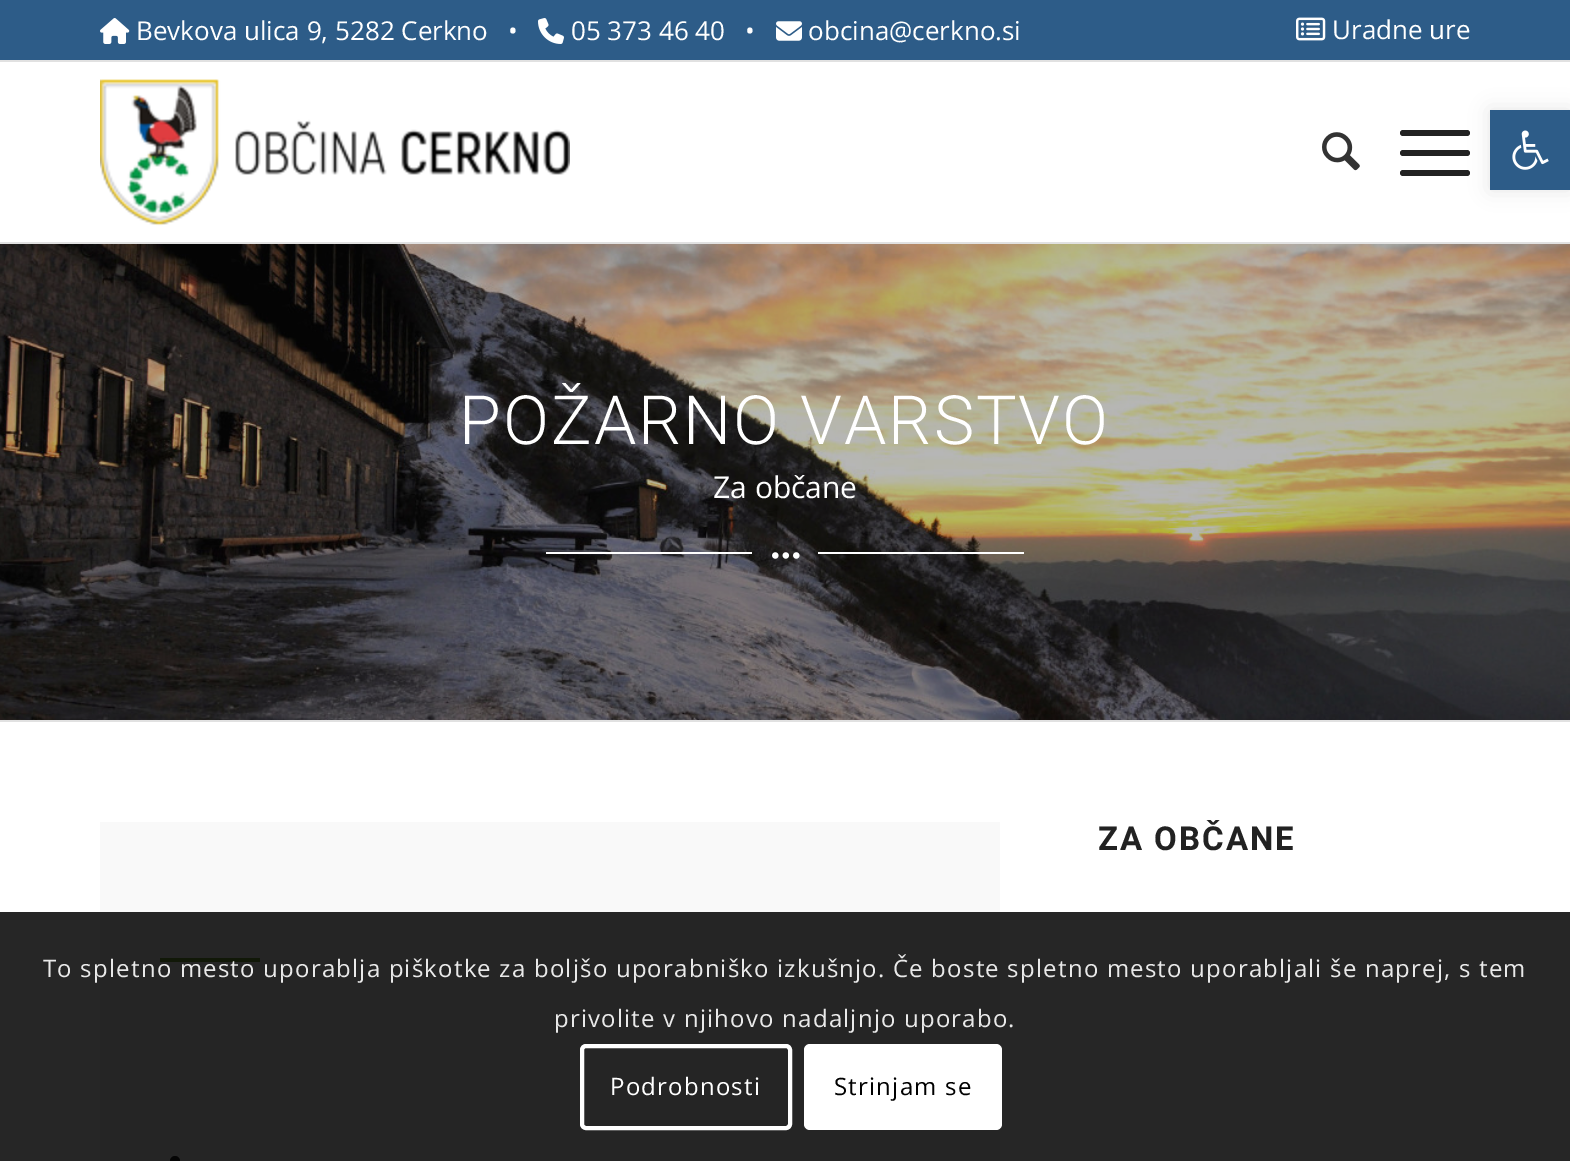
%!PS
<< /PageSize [1570 1161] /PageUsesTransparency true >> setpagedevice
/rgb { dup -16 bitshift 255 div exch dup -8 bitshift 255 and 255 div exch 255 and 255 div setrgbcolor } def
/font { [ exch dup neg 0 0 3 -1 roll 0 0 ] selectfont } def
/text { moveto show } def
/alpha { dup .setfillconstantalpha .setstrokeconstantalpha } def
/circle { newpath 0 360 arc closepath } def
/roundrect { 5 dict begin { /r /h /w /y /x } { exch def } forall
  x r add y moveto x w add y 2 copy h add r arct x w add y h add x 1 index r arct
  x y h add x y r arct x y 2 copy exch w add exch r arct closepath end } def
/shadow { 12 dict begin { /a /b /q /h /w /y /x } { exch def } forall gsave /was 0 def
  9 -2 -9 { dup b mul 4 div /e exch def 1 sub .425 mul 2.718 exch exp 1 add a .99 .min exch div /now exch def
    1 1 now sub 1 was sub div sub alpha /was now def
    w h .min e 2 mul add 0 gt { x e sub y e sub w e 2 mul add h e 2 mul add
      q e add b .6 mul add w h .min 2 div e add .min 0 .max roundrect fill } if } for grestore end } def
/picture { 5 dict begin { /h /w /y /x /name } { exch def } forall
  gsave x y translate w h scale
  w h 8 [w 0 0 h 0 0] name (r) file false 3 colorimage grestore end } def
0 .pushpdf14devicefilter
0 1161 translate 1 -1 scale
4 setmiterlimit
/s1 { /OpenSans-Regular 26 font 16#FFFFFF rgb } def
/s2 { /OpenSans-Regular 30 font 16#FFFFFF rgb } def
16#FFFFFF rgb
0 0 1570 1161 rectfill
16#2D5C88 rgb
0 0 1570 60 rectfill
16#E1E1E1 rgb
0 60 1570 2 rectfill
(pic1.raw) 100 18 30 26 picture
s1
(Bevkova ulica 9, 5282 Cerkno   •) 136 40 text
(pic2.raw) 538 18 26 26 picture
(05 373 46 40) 571 40 text
(•) 745 40 text
(pic3.raw) 776 21 26 20 picture
(obcina@cerkno.si) 808 40 text
(pic4.raw) 1296 17 30 24 picture
(Uradne ure) 1332 39 text
16#E1E1E1 rgb
0 242 1570 2 rectfill
(pic5.raw) 100 79 470 147 picture
(pic6.raw) 1322 132 38 39 picture
16#222222 rgb
1400 150 70 6 3 roundrect fill
1400 130 70 6 3 roundrect fill
1400 170 70 6 3 roundrect fill
(pic7.raw) 0 244 1570 476 picture
/Roboto-Light 68 font
16#FFFFFF rgb
459 444 moveto 2 0 (POŽARNO VARSTVO) ashow
s2
(Za občane) 713 498 text
546 552 206 2 rectfill
(pic8.raw) 772 552 28 7 picture
818 552 206 2 rectfill
16#E1E1E1 rgb
0 720 1570 2 rectfill
16#F9F9F9 rgb
100 822 900 339 rectfill
16#72A436 rgb
160 958 100 4 rectfill
16#222222 rgb
175 1161 5 circle fill
/Roboto-Bold 33 font
1098 850 moveto 2 0 (ZA OBČANE) ashow
16#000000 rgb
1490 110 80 80 0 10 0.1 shadow
16#2D5C88 rgb
1490 110 80 80 rectfill
(pic9.raw) 1512 130 37 40 picture
0.85 alpha
16#000000 rgb
0 912 1570 249 rectfill
/OpenSans-Regular 24 font
1 alpha
16#E9E9E9 rgb
43 977 moveto 1.2 0 (To spletno mesto uporablja piškotke za boljšo uporabniško izkušnjo. Če boste spletno mesto uporabljali še naprej, s tem) ashow
554 1027 moveto 1.2 0 (privolite v njihovo nadaljnjo uporabo.) ashow
16#FFFFFF rgb
4 setlinewidth
582 1046 208 82 4 roundrect stroke
610 1095 moveto 1.2 0 (Podrobnosti) ashow
804 1044 198 86 6 roundrect fill
16#000000 rgb
834 1095 moveto 1.2 0 (Strinjam se) ashow
.poppdf14devicefilter showpage
